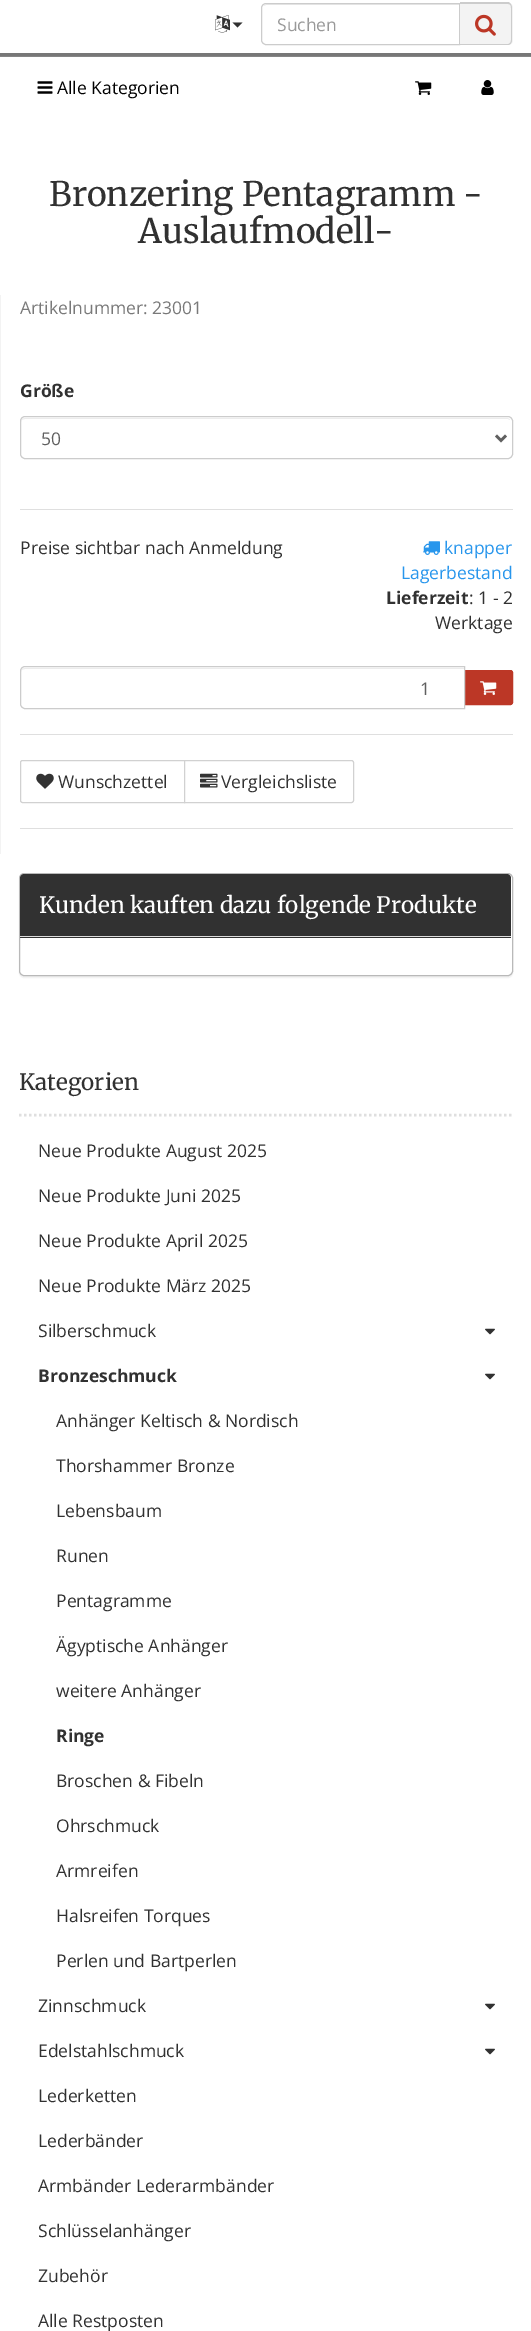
%!PS
<< /PageSize [531 2331] /PageUsesTransparency true >> setpagedevice
/rgb { dup -16 bitshift 255 div exch dup -8 bitshift 255 and 255 div exch 255 and 255 div setrgbcolor } def
/font { [ exch dup neg 0 0 3 -1 roll 0 0 ] selectfont } def
/text { moveto show } def
/alpha { dup .setfillconstantalpha .setstrokeconstantalpha } def
/roundrect { 5 dict begin { /r /h /w /y /x } { exch def } forall
  x r add y moveto x w add y 2 copy h add r arct x w add y h add x 1 index r arct
  x y h add x y r arct x y 2 copy exch w add exch r arct closepath end } def
/shadow { 12 dict begin { /a /b /q /h /w /y /x } { exch def } forall gsave /was 0 def
  9 -2 -9 { dup b mul 4 div /e exch def 1 sub .425 mul 2.718 exch exp 1 add a .99 .min exch div /now exch def
    1 1 now sub 1 was sub div sub alpha /was now def
    w h .min e 2 mul add 0 gt { x e sub y e sub w e 2 mul add h e 2 mul add
      q e add b .6 mul add w h .min 2 div e add .min 0 .max roundrect fill } if } for grestore end } def
/picture { 5 dict begin { /h /w /y /x /name } { exch def } forall
  gsave x y translate w h scale
  w h 8 [w 0 0 h 0 0] name (r) file false 3 colorimage grestore end } def
0 .pushpdf14devicefilter
0 2331 translate 1 -1 scale
4 setmiterlimit
/s1 { /OpenSans-Regular 17.5 font 16#999999 rgb } def
/s2 { /OpenSans-Regular 17.5 font 16#000000 rgb } def
/s3 { /Merriweather-Regular 33.75 font 16#313131 rgb } def
/s4 { /OpenSans-Regular 17.5 font 16#797979 rgb } def
/s5 { /OpenSans-Bold 17.5 font 16#313131 rgb } def
/s6 { /OpenSans-Regular 17.5 font 16#606060 rgb } def
/s7 { /OpenSans-Regular 17.5 font 16#313131 rgb } def
/s8 { /OpenSans-Regular 17.5 font 16#2896EC rgb } def
/s9 { /Merriweather-Regular 22.5 font 16#FFFFFF rgb } def
/s10 { /Merriweather-Regular 22.5 font 16#313131 rgb } def
16#FFFFFF rgb
0 0 531 2331 rectfill
(pic1.raw) 215 15 15 18 picture
16#313131 rgb
232.5 22.5 moveto 242.5 22.5 lineto 237.5 27.5 lineto closepath fill
16#ECECEC rgb
266 5 moveto 459 5 lineto 459 4 lineto 267 4 lineto 266 4 264 5 264 6 curveto closepath fill
16#CCCCCC rgb
266 3.5 moveto 459.5 3.5 lineto 459.5 44.5 lineto 266 44.5 lineto 263.5 44.5 261.5 42.5 261.5 40 curveto 261.5 8 lineto 261.5 5.5 263.5 3.5 266 3.5 curveto closepath stroke
s1
(Suchen) 277 31 text
16#F3F3F3 rgb
460 3 moveto 508 3 lineto 511 3 513 5 513 8 curveto 513 40 lineto 513 43 511 45 508 45 curveto 460 45 lineto closepath fill
16#CCCCCC rgb
460 2 moveto 508 2 lineto 510 2 512 5 512 8 curveto 512 40 lineto 512 43 510 45 508 45 curveto 460 45 lineto closepath 460 4 moveto 508 4 lineto 510 4 511 5 511 8 curveto 511 40 lineto 511 42 510 44 508 44 curveto 460 44 lineto closepath eofill
(pic2.raw) 475 14 21 22 picture
16#777777 rgb
0 53 531 3 rectfill
16#858585 rgb
0 56 531 1 rectfill
(pic3.raw) 37 81 16 13 picture
s2
(Alle Kategorien) 57 94 text
(pic4.raw) 415 81 17 14 picture
(pic5.raw) 481 80 13 15 picture
s3
(Bronzering Pentagramm -) 49 206 text
(Auslaufmodell-) 138 243 text
16#F3F3F3 rgb
0 295 1 559 rectfill
s4
(Artikelnummer: 23001) 20 314 text
s5
(Größe) 20 397 text
16#ECECEC rgb
25 419 moveto 508 419 lineto 510 420 lineto 510 419 508 418 507 418 curveto 25 418 lineto 23 418 21 420 21 422 curveto 21 420 23 419 25 419 curveto closepath fill
16#CCCCCC rgb
20.5 416.5 492 42 4.5 roundrect stroke
16#606060 rgb
2.5 setlinewidth
496 435.5 moveto 501 440.5 lineto 506 435.5 lineto stroke
s6
(50) 41 445 text
16#DFDFDF rgb
20 509 493 1 rectfill
s7
(Preise sichtbar nach Anmeldung) 20 554 text
(pic6.raw) 423 541 17 14 picture
s8
(knapper) 444 554 text
(Lagerbestand) 401 579 text
s5
(Lieferzeit) 386 604 text
s7
(: 1 - 2) 469 604 text
(Werktage) 435 629 text
16#BC3726 rgb
464.5 670.5 moveto 510.5 670.5 lineto 511.5 670.5 512.5 671.5 512.5 672.5 curveto 512.5 702.5 lineto 512.5 703.5 511.5 704.5 510.5 704.5 curveto 464.5 704.5 lineto closepath gsave fill grestore
1 setlinewidth
stroke
16#FFFFFF rgb
25 666 moveto 465 666 lineto 465 709 lineto 25 709 lineto 22 709 20 707 20 704 curveto 20 671 lineto 20 668 22 666 25 666 curveto closepath fill
16#ECECEC rgb
25 669 moveto 464 669 lineto 464 668 lineto 25 668 lineto 23 668 21 670 21 672 curveto 21 670 23 669 25 669 curveto closepath fill
16#CCCCCC rgb
25 666.5 moveto 464.5 666.5 lineto 464.5 708.5 lineto 25 708.5 lineto 22.5 708.5 20.5 706.5 20.5 704 curveto 20.5 671 lineto 20.5 668.5 22.5 666.5 25 666.5 curveto closepath stroke
s6
(1) 420 695 text
(pic7.raw) 480 681 17 14 picture
16#DFDFDF rgb
20 734 493 1 rectfill
16#D1D1D1 rgb
22.5 760.5 moveto 184.5 760.5 lineto 184.5 802.5 lineto 22.5 802.5 lineto 21.5 802.5 20.5 801.5 20.5 800.5 curveto 20.5 762.5 lineto 20.5 761.5 21.5 760.5 22.5 760.5 curveto closepath stroke
(pic8.raw) 36 773 18 16 picture
s7
(Wunschzettel) 58 788 text
16#FFFFFF rgb
184.5 760.5 moveto 351.5 760.5 lineto 352.5 760.5 353.5 761.5 353.5 762.5 curveto 353.5 800.5 lineto 353.5 801.5 352.5 802.5 351.5 802.5 curveto 184.5 802.5 lineto closepath gsave fill grestore
16#D1D1D1 rgb
stroke
(pic9.raw) 200 773 18 15 picture
s7
(Vergleichsliste) 221 788 text
16#DFDFDF rgb
20 828 493 1 rectfill
16#000000 rgb
19 874 494 104 5 0.5 0.05 shadow
16#FFFFFF rgb
19.5 873.5 493 102 4.5 roundrect gsave fill grestore
16#B9B9B9 rgb
stroke
16#313131 rgb
24 874 moveto 507 874 lineto 509 874 511 876 511 878 curveto 511 938 lineto 20 938 lineto 20 878 lineto 20 876 22 874 24 874 curveto closepath fill
16#DDDDDD rgb
20 936 491 1 rectfill
s9
(Kunden kauften dazu folgende Produkte) 39 913 text
16#DFDFDF rgb
2.5 setlinewidth
[2.5 2.5] 0 setdash
19 1115 moveto 512.5 1115 lineto stroke
s10
(Kategorien) 19 1090 text
s7
(Neue Produkte August 2025) 38 1157 text
(Neue Produkte Juni 2025) 38 1202 text
(Neue Produkte April 2025) 38 1247 text
(Neue Produkte März 2025) 38 1292 text
(Silberschmuck) 38 1337 text
(pic10.raw) 485 1328 10 7 picture
s5
(Bronzeschmuck) 38 1382 text
(pic10.raw) 485 1373 10 7 picture
s7
(Anhänger Keltisch & Nordisch) 56 1427 text
(Thorshammer Bronze) 56 1472 text
(Lebensbaum) 56 1517 text
(Runen) 56 1562 text
(Pentagramme) 56 1607 text
(Ägyptische Anhänger) 56 1652 text
(weitere Anhänger) 56 1697 text
s5
(Ringe) 56 1742 text
s7
(Broschen & Fibeln) 56 1787 text
(Ohrschmuck) 56 1832 text
(Armreifen) 56 1877 text
(Halsreifen Torques) 56 1922 text
(Perlen und Bartperlen) 56 1967 text
(Zinnschmuck) 38 2012 text
(pic10.raw) 485 2003 10 7 picture
(Edelstahlschmuck) 38 2057 text
(pic10.raw) 485 2048 10 7 picture
(Lederketten) 38 2102 text
(Lederbänder) 38 2147 text
(Armbänder Lederarmbänder) 38 2192 text
(Schlüsselanhänger) 38 2237 text
(Zubehör) 38 2282 text
(Alle Restposten) 38 2327 text
.poppdf14devicefilter showpage
